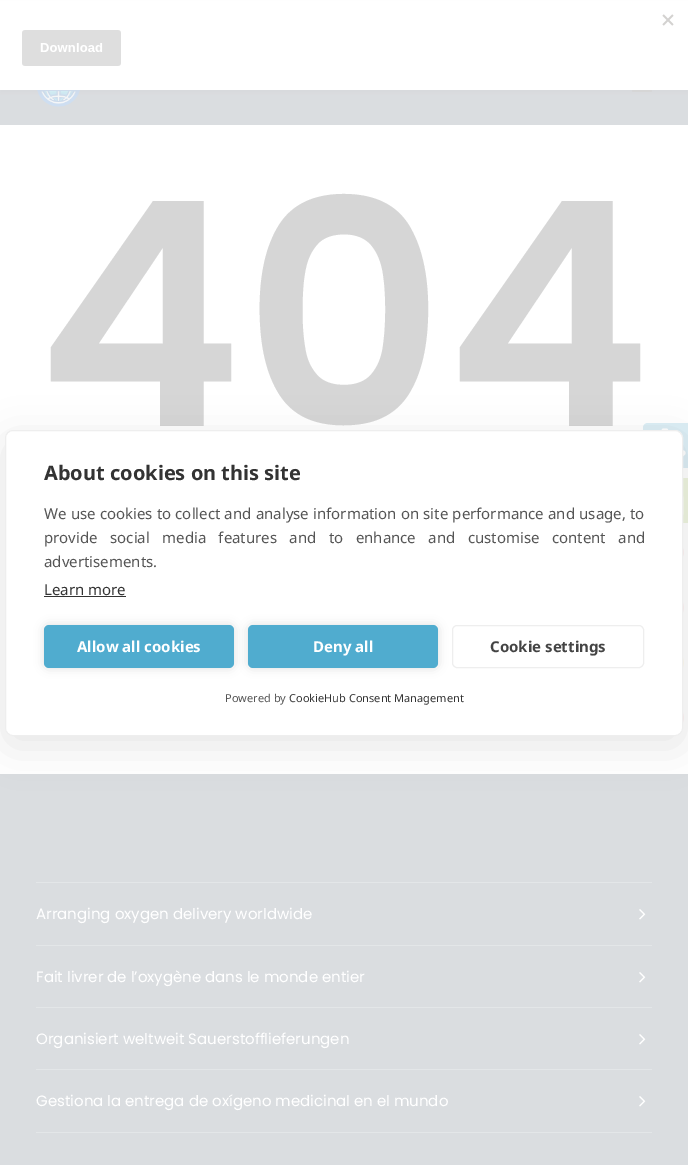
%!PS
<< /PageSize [688 1165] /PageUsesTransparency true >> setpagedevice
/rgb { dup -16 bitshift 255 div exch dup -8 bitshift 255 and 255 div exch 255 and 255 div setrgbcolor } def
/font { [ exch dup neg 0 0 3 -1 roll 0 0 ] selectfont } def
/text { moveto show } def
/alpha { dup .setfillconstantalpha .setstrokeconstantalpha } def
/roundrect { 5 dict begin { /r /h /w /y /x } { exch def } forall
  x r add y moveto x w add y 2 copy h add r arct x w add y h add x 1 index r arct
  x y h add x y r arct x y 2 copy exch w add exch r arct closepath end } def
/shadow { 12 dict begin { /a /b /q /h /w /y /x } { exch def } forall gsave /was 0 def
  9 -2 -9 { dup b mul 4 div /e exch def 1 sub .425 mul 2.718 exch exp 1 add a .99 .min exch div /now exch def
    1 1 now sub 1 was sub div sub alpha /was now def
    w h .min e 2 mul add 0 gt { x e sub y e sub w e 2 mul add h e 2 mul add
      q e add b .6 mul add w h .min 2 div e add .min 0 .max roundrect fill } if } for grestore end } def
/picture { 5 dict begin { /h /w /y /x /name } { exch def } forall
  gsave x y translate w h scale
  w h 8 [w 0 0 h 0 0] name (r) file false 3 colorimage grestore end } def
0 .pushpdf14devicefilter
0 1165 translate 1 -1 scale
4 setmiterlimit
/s1 { /Poppins-SemiBold 313 font 16#D6D6D6 rgb } def
/s2 { /Poppins-Regular 15 font 16#FFFFFF rgb } def
/s3 { /NotoSans-Bold 20 font 16#333333 rgb } def
/s4 { /NotoSans-Regular 15 font 16#555555 rgb } def
/s5 { /NotoSans-Regular 15 font 16#333333 rgb } def
/s6 { /NotoSans-Bold 15 font 16#FFFFFF rgb } def
/s7 { /NotoSans-Bold 15 font 16#444444 rgb } def
/s8 { /NotoSans-Regular 11 font 16#555555 rgb } def
/s9 { /NotoSans-Regular 11 font 16#333333 rgb } def
16#FFFFFF rgb
0 0 688 1165 rectfill
16#DADDE0 rgb
0 90 688 35 rectfill
(pic2.raw) 37 90 43 17 picture
16#D6D6D6 rgb
632 90 20 2 1 roundrect fill
16#CCCCCC rgb
0 3 688 90 0 3 0.2 shadow
16#FFFFFF rgb
0 1 688 89 rectfill
(pic1.raw) 22 14 652 52 picture
s1
(404) 36 426 text
16#DADDE0 rgb
0 774 688 391 rectfill
16#E3E6E8 rgb
36 882 616 1 rectfill
s2
(Arranging oxygen delivery worldwide) 36 919 text
(pic3.raw) 639 909 7 11 picture
16#E3E6E8 rgb
36 945 616 1 rectfill
s2
(Fait livrer de l’oxygène dans le monde entier) 36 982 text
(pic3.raw) 639 972 7 11 picture
16#E3E6E8 rgb
36 1007 616 1 rectfill
s2
(Organisiert weltweit Sauerstofflieferungen) 36 1044 text
(pic3.raw) 639 1034 7 11 picture
16#E3E6E8 rgb
36 1069 616 1 rectfill
36 1132 616 1 rectfill
s2
(Gestiona la entrega de oxígeno medicinal en el mundo) 36 1106 text
(pic3.raw) 639 1096 7 11 picture
16#DCEEF5 rgb
648 423 moveto 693 423 lineto 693 468 lineto 648 468 lineto 645 468 643 466 643 463 curveto 643 428 lineto 643 425 645 423 648 423 curveto closepath fill
(pic4.raw) 661 428 25 29 picture
16#EFF5DF rgb
683 478 5 45 rectfill
(pic5.raw) 683 496 1 20 picture
(pic6.raw) 683 548 1 9 picture
(pic7.raw) 683 602 1 11 picture
(pic8.raw) 683 657 1 11 picture
(pic9.raw) 683 712 1 11 picture
16#000000 rgb
5 440 678 306 8 20 0.1 shadow
16#FFFFFF rgb
5.5 430.5 677 305 7.5 roundrect gsave fill grestore
16#EEEEEE rgb
stroke
s3
(About cookies on this site) 44 480 text
/NotoSans-Regular 15 font
16#555555 rgb
44 519 moveto 0.25 0 32 (We use cookies to collect and analyse information on site performance and usage, to) widthshow
44 543 moveto 8.5 0 32 (provide social media features and to enhance and customise content and) widthshow
(advertisements.) 44 567 text
s5
(Learn more) 44 595 text
44 596 82 1 rectfill
16#000000 rgb
44 625 190 43 5 5 0.12 shadow
16#50ACCF rgb
44 625 190 43 5 roundrect fill
s6
(Allow all cookies) 77 652 text
16#000000 rgb
248 625 190 43 5 5 0.12 shadow
16#50ACCF rgb
248 625 190 43 5 roundrect fill
s6
(Deny all) 313 652 text
16#EEEEEE rgb
452.5 625.5 191 42 4.5 roundrect stroke
s7
(Cookie settings) 490 652 text
s8
(Powered by) 225 702 text
s9
(CookieHub Consent Management) 289 702 text
.poppdf14devicefilter showpage
